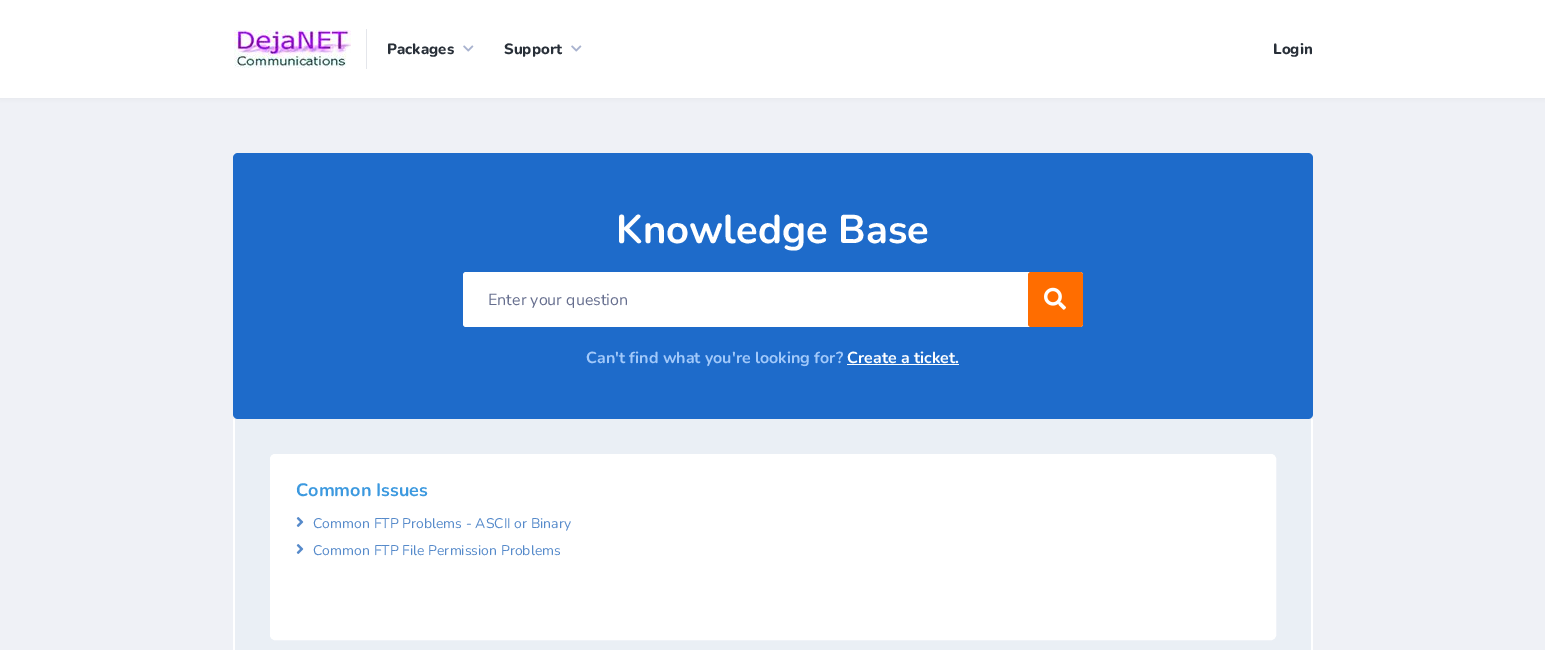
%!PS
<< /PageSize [1545 650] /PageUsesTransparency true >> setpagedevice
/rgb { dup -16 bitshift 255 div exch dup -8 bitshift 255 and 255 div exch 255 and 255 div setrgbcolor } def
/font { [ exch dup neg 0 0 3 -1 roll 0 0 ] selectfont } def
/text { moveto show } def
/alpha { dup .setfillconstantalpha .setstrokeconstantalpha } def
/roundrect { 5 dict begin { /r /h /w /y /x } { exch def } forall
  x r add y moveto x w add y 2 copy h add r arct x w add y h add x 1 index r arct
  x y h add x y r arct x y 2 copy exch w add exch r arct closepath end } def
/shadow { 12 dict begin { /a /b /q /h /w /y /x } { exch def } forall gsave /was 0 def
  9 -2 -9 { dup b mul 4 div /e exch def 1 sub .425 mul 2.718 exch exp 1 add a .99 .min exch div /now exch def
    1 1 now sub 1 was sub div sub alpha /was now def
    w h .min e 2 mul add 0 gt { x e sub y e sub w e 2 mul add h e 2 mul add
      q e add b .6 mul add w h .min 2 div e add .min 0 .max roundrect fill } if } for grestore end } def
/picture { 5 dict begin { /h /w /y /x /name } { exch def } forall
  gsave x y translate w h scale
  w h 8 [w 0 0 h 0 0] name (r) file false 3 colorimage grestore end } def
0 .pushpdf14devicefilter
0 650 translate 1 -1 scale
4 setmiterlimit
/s1 { /Nunito-ExtraBold 15 font 16#282F38 rgb } def
/s2 { /Nunito-Bold 40 font 16#FFFFFF rgb } def
/s3 { /Nunito-Regular 16 font 16#666E8E rgb } def
/s4 { /Nunito-Bold 16 font 16#A2C9FA rgb } def
/s5 { /Nunito-Bold 16 font 16#FFFFFF rgb } def
/s6 { /Nunito-Bold 18 font 16#3C99DF rgb } def
/s7 { /Nunito-Regular 14 font 16#568ACA rgb } def
16#EFF1F6 rgb
0 0 1545 650 rectfill
16#000000 rgb
0 0 1545 98 0 3 0.05 shadow
16#FFFFFF rgb
0 0 1545 98 rectfill
(pic1.raw) 234 30 117 38 picture
16#E4E6EB rgb
366 29 1 40 rectfill
s1
(Packages) 387 54 text
(pic2.raw) 463 45 11 7 picture
(Support) 504 54 text
(pic2.raw) 571 45 11 7 picture
(Login) 1273 54 text
16#1E6BCA rgb
233 153 1080 266 5 roundrect fill
s2
(Knowledge Base) 616 243 text
463 272 620 55 3 roundrect fill
s3
(Enter your question) 488 305 text
16#FF6D00 rgb
1028 272 55 55 3 roundrect fill
(pic3.raw) 1044 287 22 23 picture
s4
(Can't find what you're looking for?) 586 363 text
s5
(Create a ticket.) 847 363 text
847 364 112 1 rectfill
16#EAEFF5 rgb
235 419 1076 231 rectfill
16#FFFFFF rgb
233 419 moveto 1313 419 lineto 1313 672 lineto 1313 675 1311 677 1308 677 curveto 238 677 lineto 235 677 233 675 233 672 curveto closepath 235 419 moveto 1311 419 lineto 1311 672 lineto 1311 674 1310 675 1308 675 curveto 238 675 lineto 236 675 235 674 235 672 curveto closepath eofill
270.5 454.5 1005 185 4.5 roundrect gsave fill grestore
stroke
s6
(Common Issues) 296 496 text
(pic4.raw) 296 517 8 10 picture
s7
(Common FTP Problems - ASCII or Binary) 313 528 text
(pic4.raw) 296 544 8 10 picture
(Common FTP File Permission Problems) 313 555 text
.poppdf14devicefilter showpage
